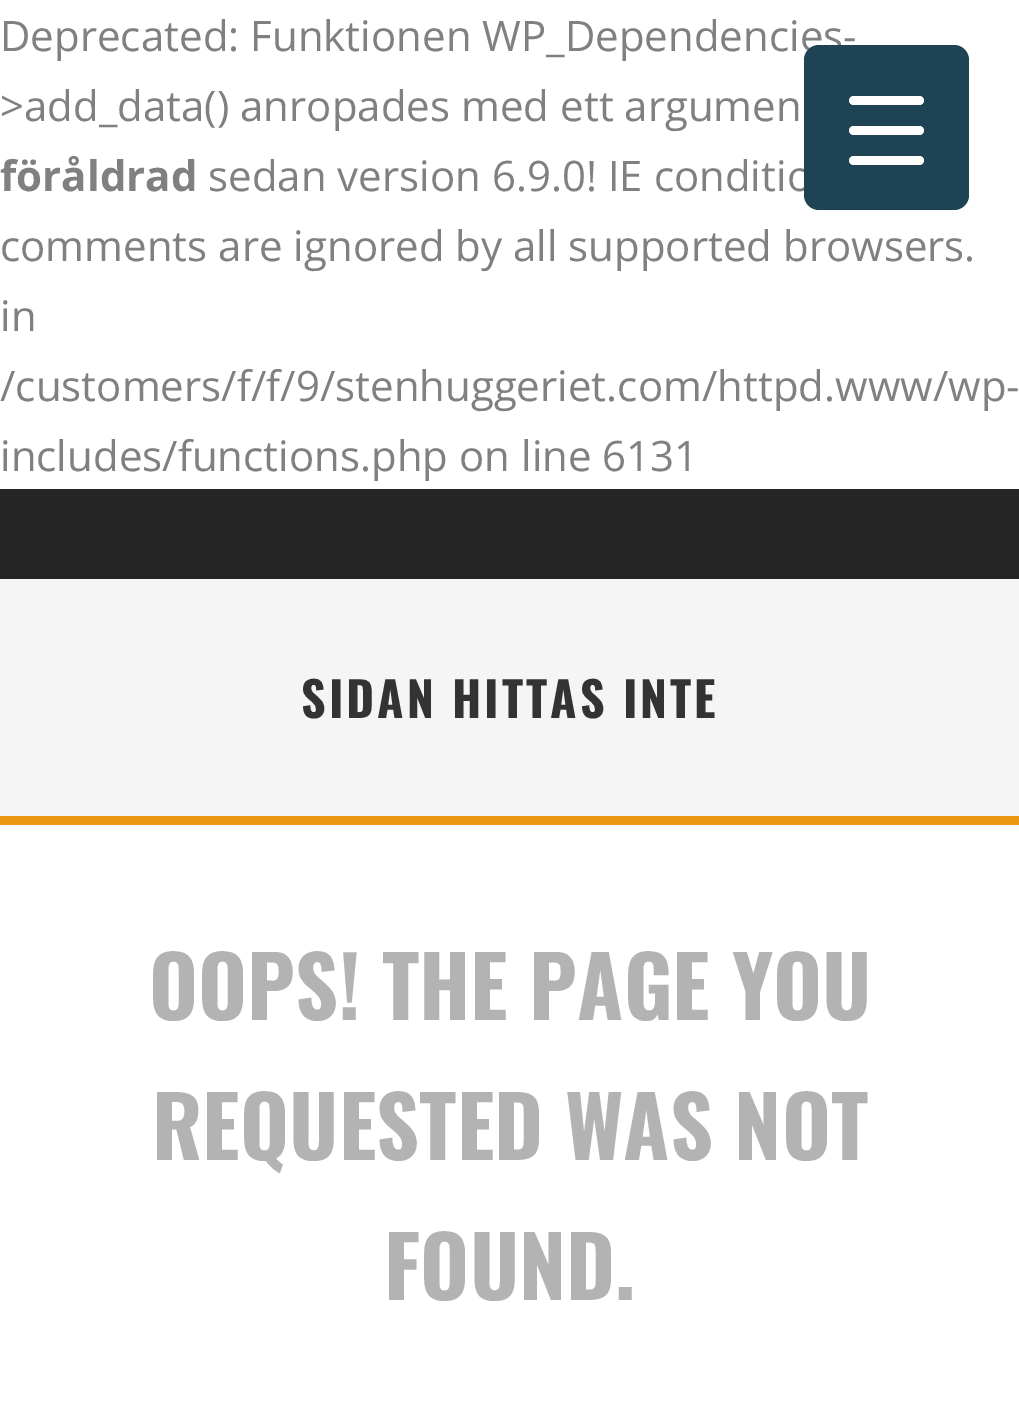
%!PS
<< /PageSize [1019 1402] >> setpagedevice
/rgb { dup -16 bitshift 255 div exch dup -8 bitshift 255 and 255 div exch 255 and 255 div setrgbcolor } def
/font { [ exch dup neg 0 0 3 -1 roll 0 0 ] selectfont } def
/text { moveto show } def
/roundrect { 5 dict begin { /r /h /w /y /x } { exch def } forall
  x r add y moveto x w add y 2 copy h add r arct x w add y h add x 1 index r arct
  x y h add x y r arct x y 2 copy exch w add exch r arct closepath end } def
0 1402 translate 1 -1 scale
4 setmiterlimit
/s1 { /OpenSans-Regular 42 font 16#808080 rgb } def
/s2 { /OpenSans-Bold 42 font 16#808080 rgb } def
/s3 { /Oswald-Bold 84 font 16#B3B3B3 rgb } def
16#FFFFFF rgb
0 0 1019 1402 rectfill
s1
(Deprecated: Funktionen WP_Dependencies-) 0 51 text
(>add_data\(\) anropades med ett argumen) 0 121 text
(sedan version 6.9.0! IE conditio) 208 191 text
16#1D4354 rgb
804 45 165 165 15 roundrect fill
16#FFFFFF rgb
849 126 75 9 4.5 roundrect fill
849 96 75 9 4.5 roundrect fill
849 156 75 9 4.5 roundrect fill
s2
(föråldrad) 0 191 text
s1
(comments are ignored by all supported browsers.) 0 261 text
(in) 0 331 text
(/customers/f/f/9/stenhuggeriet.com/httpd.www/wp-) 0 401 text
(includes/functions.php on line 6131) 0 471 text
16#252525 rgb
0 489 1019 90 rectfill
16#F5F5F5 rgb
0 579 1019 237 rectfill
16#EB9812 rgb
0 816 1019 9 rectfill
/Oswald-Bold 48 font
16#333333 rgb
301 718 moveto 3 0 (SIDAN HITTAS INTE) ashow
s3
(OOPS! THE PAGE YOU) 149 1020 text
(REQUESTED WAS NOT) 152 1160 text
(FOUND.) 384 1300 text
showpage
